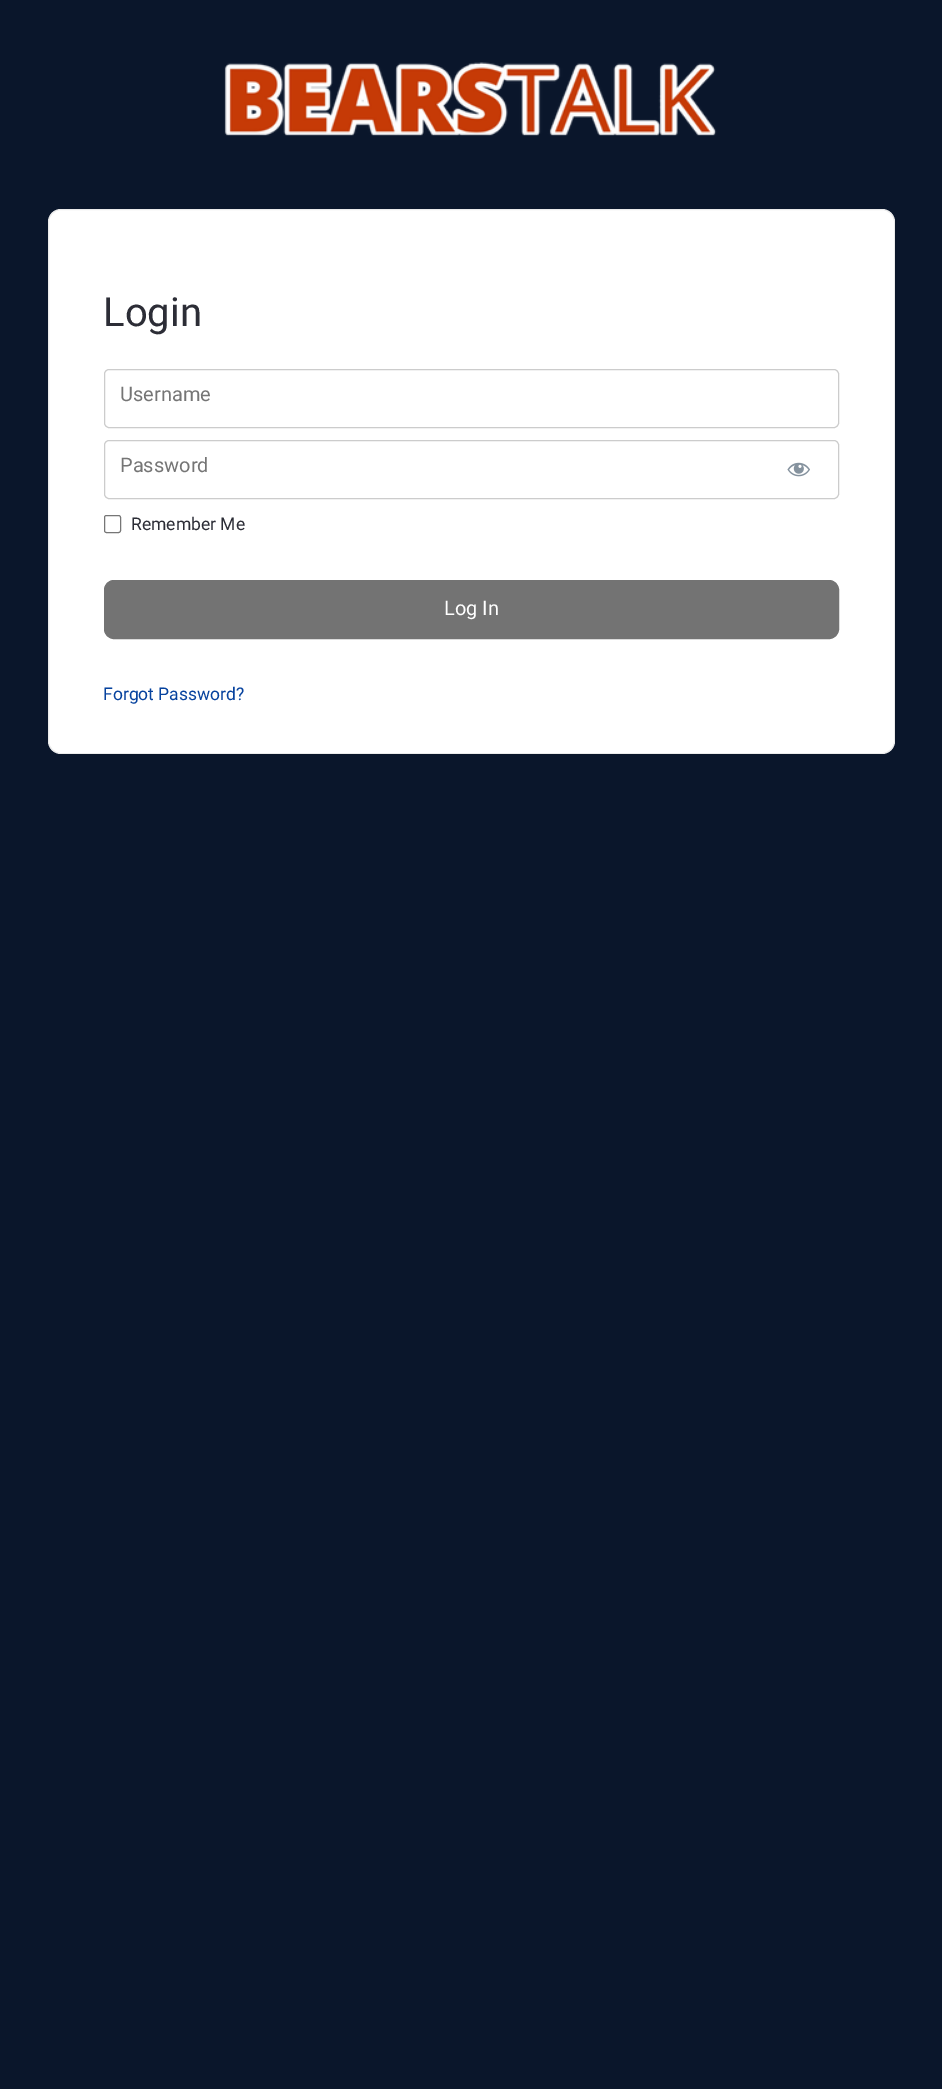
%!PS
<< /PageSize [942 2089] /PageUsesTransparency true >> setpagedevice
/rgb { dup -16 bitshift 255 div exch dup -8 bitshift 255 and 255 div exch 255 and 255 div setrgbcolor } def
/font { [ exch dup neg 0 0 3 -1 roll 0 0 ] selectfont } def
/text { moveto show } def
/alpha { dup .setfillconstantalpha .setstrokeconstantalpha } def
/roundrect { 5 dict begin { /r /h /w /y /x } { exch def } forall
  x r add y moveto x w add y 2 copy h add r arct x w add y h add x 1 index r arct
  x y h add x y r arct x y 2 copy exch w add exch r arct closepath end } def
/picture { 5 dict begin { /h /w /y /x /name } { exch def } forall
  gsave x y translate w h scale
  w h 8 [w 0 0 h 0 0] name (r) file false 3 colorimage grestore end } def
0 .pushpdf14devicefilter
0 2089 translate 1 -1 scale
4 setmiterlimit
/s1 { /Roboto-Regular 40 font 16#2C2D36 rgb } def
/s2 { /Roboto-Regular 20 font 16#757575 rgb } def
/s3 { /Roboto-Regular 17.5 font 16#2C2D36 rgb } def
/s4 { /Roboto-Regular 20 font 16#FFFFFF rgb } def
/s5 { /Roboto-Regular 17.5 font 16#06429E rgb } def
16#0A162B rgb
0 0 942 2089 rectfill
(pic1.raw) 224 62 493 74 picture
16#FFFFFF rgb
48 209 847 545 13 roundrect fill
0.08 alpha
16#000000 rgb
48.5 209.5 846 544 12.5 roundrect stroke
1 alpha
s1
(Login) 103 326 text
16#CCCCCC rgb
104.5 369.5 734 58 4.5 roundrect stroke
s2
(Username) 120 401 text
16#CCCCCC rgb
104.5 440.5 734 58 4.5 roundrect stroke
(pic2.raw) 787 462 23 15 picture
s2
(Password) 120 472 text
16#767676 rgb
104.5 515.5 16 17 2 roundrect stroke
s3
(Remember Me) 131 530 text
16#737373 rgb
104.5 580.5 734 58 9.5 roundrect gsave fill grestore
stroke
s4
(Log In) 444 615 text
s5
(Forgot Password?) 103 700 text
.poppdf14devicefilter showpage
